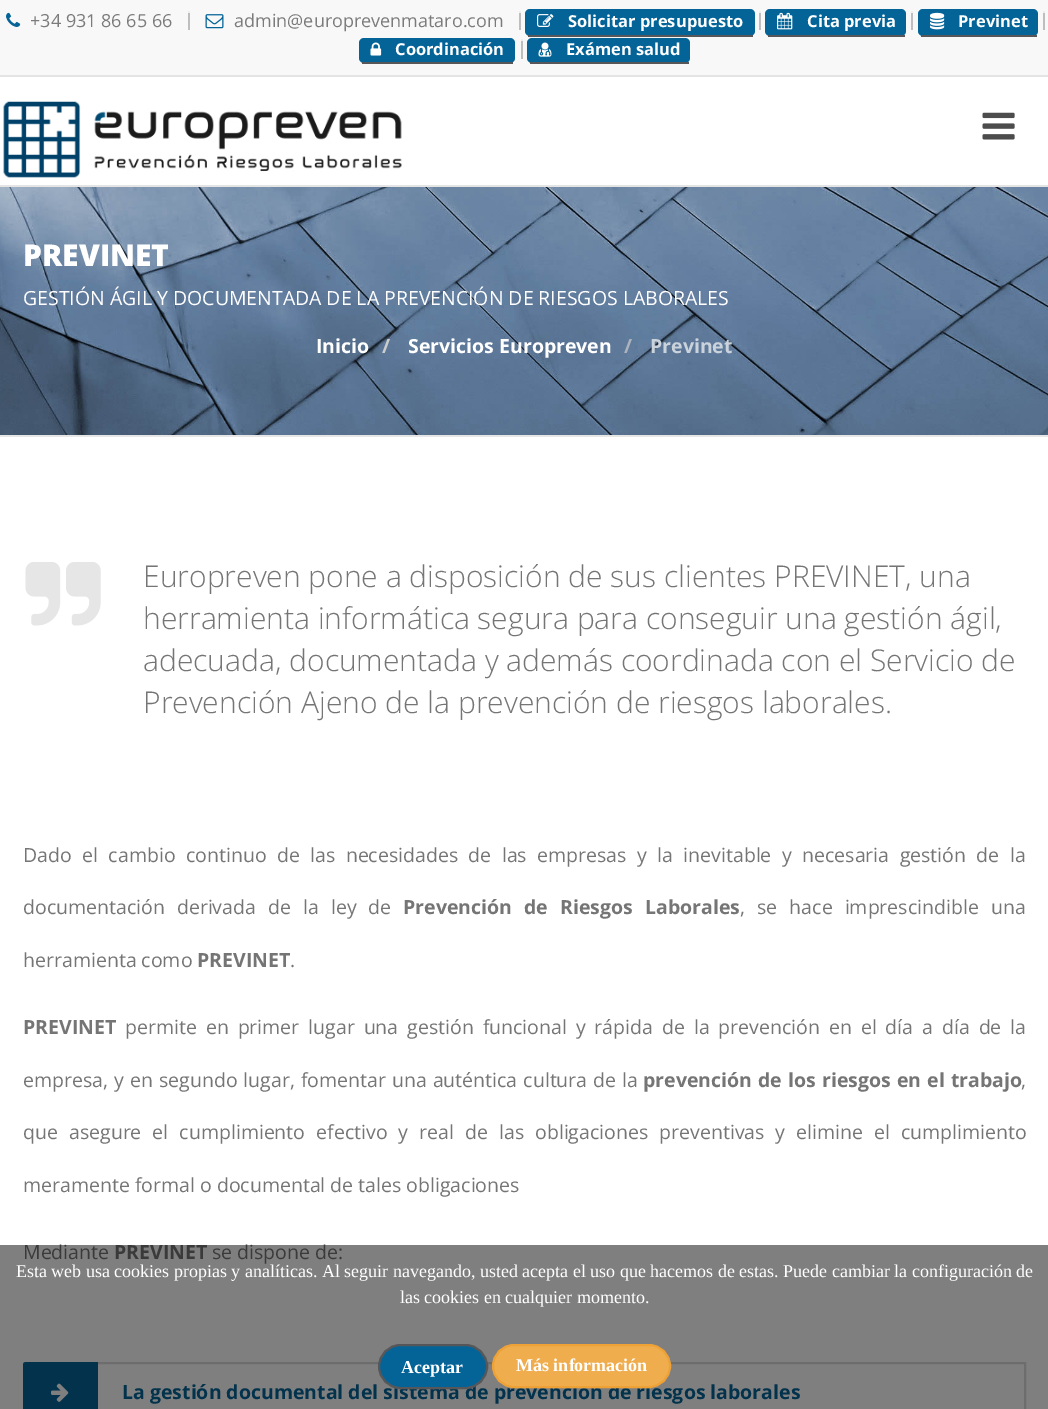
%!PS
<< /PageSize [1048 1409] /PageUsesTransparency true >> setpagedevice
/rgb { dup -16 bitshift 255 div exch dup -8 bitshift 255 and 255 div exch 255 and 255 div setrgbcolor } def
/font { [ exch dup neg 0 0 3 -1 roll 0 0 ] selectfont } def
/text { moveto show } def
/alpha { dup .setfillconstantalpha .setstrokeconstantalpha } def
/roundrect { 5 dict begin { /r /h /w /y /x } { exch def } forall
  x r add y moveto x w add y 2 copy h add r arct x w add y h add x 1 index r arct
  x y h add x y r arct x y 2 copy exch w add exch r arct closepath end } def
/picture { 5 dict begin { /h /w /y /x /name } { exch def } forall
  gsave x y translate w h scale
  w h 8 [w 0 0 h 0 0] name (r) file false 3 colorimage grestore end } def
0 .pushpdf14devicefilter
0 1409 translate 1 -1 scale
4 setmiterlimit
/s1 { /OpenSans-Regular 18 font 16#7B7B7B rgb } def
/s2 { /OpenSans-Bold 16.5 font 16#FFFFFF rgb } def
/s3 { /OpenSans-ExtraBold 30 font 16#FFFFFF rgb } def
/s4 { /OpenSans-Regular 19.5 font 16#FFFFFF rgb } def
/s5 { /OpenSans-Bold 19.5 font 16#FFFFFF rgb } def
/s6 { /OpenSans-Bold 19.5 font 16#CCCCCC rgb } def
/s7 { /OpenSans-Bold 19.5 font 16#ABB3BD rgb } def
/s8 { /OpenSans-Bold 19.5 font 16#CAD2DB rgb } def
/s9 { /OpenSans-Light 30 font 16#757575 rgb } def
/s10 { /OpenSans-Regular 19.5 font 16#757575 rgb } def
/s11 { /OpenSans-Bold 19.5 font 16#757575 rgb } def
/s12 { /OpenSans-Bold 19.5 font 16#046498 rgb } def
/s13 { /LiberationSerif-Regular 18 font 16#FFFFFF rgb } def
/s14 { /LiberationSerif-Bold 18 font 16#FFFFFF rgb } def
16#FFFFFF rgb
0 0 1048 1409 rectfill
16#E4E4E4 rgb
0 185 1048 2 rectfill
16#F8F8F8 rgb
0 0 1048 75 rectfill
16#E4E4E4 rgb
0 75 1048 2 rectfill
(pic1.raw) 6 12 15 15 picture
s1
(+34 931 86 65 66) 30 27 text
16#BEBEBE rgb
188 11 2 19 rectfill
16#EEEEEE rgb
188 11 2 2 rectfill
(pic2.raw) 205 14 19 15 picture
s1
(admin@europrevenmataro.com) 234 27 text
16#BEBEBE rgb
519 11 2 19 rectfill
16#EEEEEE rgb
519 11 2 2 rectfill
16#046498 rgb
525 9 230 27 5 roundrect fill
16#575759 rgb
528 35 225 2 rectfill
(pic3.raw) 537 14 17 13 picture
s2
(Solicitar presupuesto) 568 27 text
16#BEBEBE rgb
759 11 2 19 rectfill
16#EEEEEE rgb
759 11 2 2 rectfill
16#046498 rgb
765 9 141 27 5 roundrect fill
16#575759 rgb
768 35 137 2 rectfill
(pic4.raw) 777 12 16 18 picture
s2
(Cita previa) 807 27 text
16#BEBEBE rgb
911 11 2 19 rectfill
16#EEEEEE rgb
911 11 2 2 rectfill
16#046498 rgb
918 9 120 27 5 roundrect fill
16#575759 rgb
921 35 116 2 rectfill
(pic5.raw) 930 12 15 18 picture
s2
(Previnet) 958 27 text
16#BEBEBE rgb
1043 11 2 19 rectfill
16#EEEEEE rgb
1043 11 2 2 rectfill
16#046498 rgb
359 38 156 25 5 roundrect fill
16#575759 rgb
362 62 151 2 rectfill
(pic6.raw) 370 42 12 14 picture
s2
(Coordinación) 395 55 text
16#BEBEBE rgb
521 39 2 20 rectfill
16#EEEEEE rgb
521 39 2 2 rectfill
16#046498 rgb
527 38 163 25 5 roundrect fill
16#575759 rgb
530 62 159 2 rectfill
(pic7.raw) 538 42 14 15 picture
s2
(Exámen salud) 566 55 text
(pic8.raw) 3 101 399 77 picture
(pic9.raw) 982 112 33 28 picture
(pic10.raw) 0 187 1048 248 picture
16#E6E6E6 rgb
0 435 1048 2 rectfill
s3
(PREVINET) 23 266 text
s4
(GESTIÓN ÁGIL Y DOCUMENTADA DE LA PREVENCIÓN DE RIESGOS LABORALES) 23 305 text
s5
(Inicio) 316 353 text
s6
(/) 382 353 text
s5
(Servicios Europreven) 408 353 text
s7
(/) 624 353 text
s8
(Previnet) 650 353 text
(pic11.raw) 25 562 76 64 picture
s9
(Europreven pone a disposición de sus clientes PREVINET, una) 143 587 text
(herramienta informática segura para conseguir una gestión ágil,) 143 629 text
(adecuada, documentada y además coordinada con el Servicio de) 143 671 text
(Prevención Ajeno de la prevención de riesgos laborales.) 143 713 text
/OpenSans-Regular 19.5 font
23 862 moveto 5.4 0 32 (Dado el cambio continuo de las necesidades de las empresas y la inevitable y necesaria gestión de la) widthshow
23 914 moveto 7 0 32 (documentación derivada de la ley de) widthshow
/OpenSans-Bold 19.5 font
403 914 moveto 7 0 32 (Prevención de Riesgos Laborales) widthshow
/OpenSans-Regular 19.5 font
740 914 moveto 7 0 32 (, se hace imprescindible una) widthshow
(herramienta como) 23 967 text
s11
(PREVINET) 197 967 text
s10
(.) 290 967 text
s11
(PREVINET) 23 1034 text
/OpenSans-Regular 19.5 font
125 1034 moveto 3.9 0 32 (permite en primer lugar una gestión funcional y rápida de la prevención en el día a día de la) widthshow
23 1087 moveto 1 0 32 (empresa, y en segundo lugar, fomentar una auténtica cultura de la) widthshow
/OpenSans-Bold 19.5 font
643 1087 moveto 1 0 32 (prevención de los riesgos en el trabajo) widthshow
s10
(,) 1021 1087 text
23 1139 moveto 6 0 32 (que asegure el cumplimiento efectivo y real de las obligaciones preventivas y elimine el cumplimiento) widthshow
(meramente formal o documental de tales obligaciones) 23 1192 text
(Mediante) 23 1259 text
s11
(PREVINET) 114 1259 text
s10
(se dispone de:) 212 1259 text
16#DADADA rgb
2 setlinewidth
24 1363 1001 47 rectstroke
16#046498 rgb
26 1362 moveto 98 1362 lineto 98 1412 lineto 26 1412 lineto 24.5 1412 23 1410.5 23 1409 curveto 23 1365 lineto 23 1363.5 24.5 1362 26 1362 curveto closepath fill
(pic12.raw) 51 1383 18 19 picture
s12
(La gestión documental del sistema de prevención de riesgos laborales) 122 1399 text
0.5 alpha
16#000000 rgb
0 1245 1048 164 rectfill
1 alpha
s13
(Esta web usa cookies propias y analíticas. Al seguir navegando, usted acepta el uso que hacemos de estas. Puede cambiar la configuración de) 16 1277 text
(las cookies en cualquier momento.) 400 1303 text
16#046498 rgb
379 1345 108 43 21.5 roundrect gsave fill grestore
16#575759 rgb
stroke
s14
(Aceptar) 401 1373 text
16#F0AD4E rgb
493 1345 177 42 21 roundrect gsave fill grestore
16#EEA236 rgb
stroke
s14
(Más información) 516 1371 text
.poppdf14devicefilter showpage
